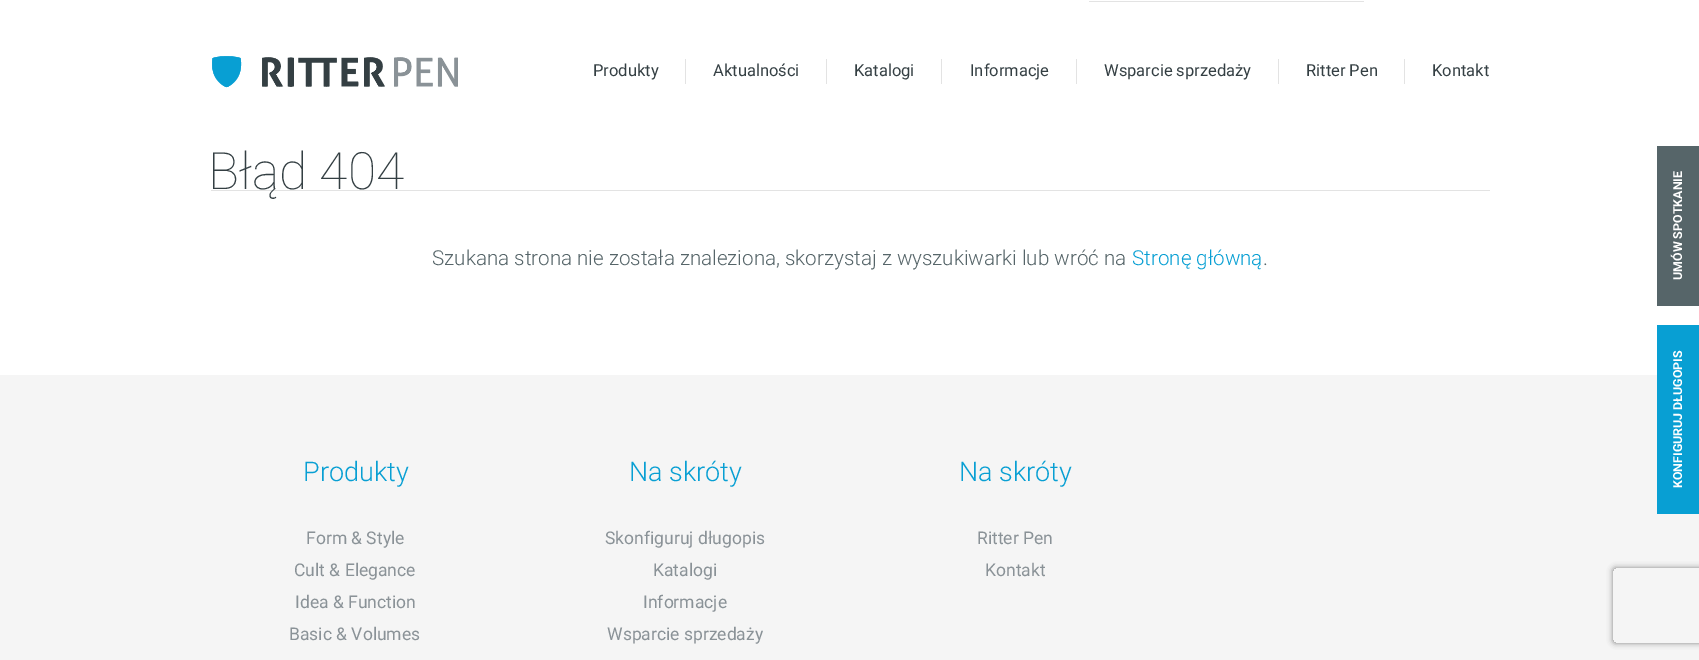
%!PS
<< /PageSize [1699 660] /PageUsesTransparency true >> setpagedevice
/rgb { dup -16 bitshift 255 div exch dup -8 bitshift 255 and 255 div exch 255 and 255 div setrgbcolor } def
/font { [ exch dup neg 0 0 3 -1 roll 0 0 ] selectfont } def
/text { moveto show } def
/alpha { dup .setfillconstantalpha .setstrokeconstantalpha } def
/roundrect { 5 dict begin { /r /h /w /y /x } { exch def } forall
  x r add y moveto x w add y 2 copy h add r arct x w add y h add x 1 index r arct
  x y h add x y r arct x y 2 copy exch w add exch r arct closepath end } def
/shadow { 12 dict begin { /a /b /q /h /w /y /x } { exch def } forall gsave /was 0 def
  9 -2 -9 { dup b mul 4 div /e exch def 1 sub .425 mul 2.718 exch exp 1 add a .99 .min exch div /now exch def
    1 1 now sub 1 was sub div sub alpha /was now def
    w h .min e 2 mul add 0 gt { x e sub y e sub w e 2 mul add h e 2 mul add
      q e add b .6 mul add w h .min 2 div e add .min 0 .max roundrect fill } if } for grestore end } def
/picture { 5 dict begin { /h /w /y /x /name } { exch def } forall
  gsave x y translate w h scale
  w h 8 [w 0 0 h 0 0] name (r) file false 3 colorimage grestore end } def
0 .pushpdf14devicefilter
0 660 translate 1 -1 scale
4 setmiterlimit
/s1 { /Roboto-Regular 16.5 font 16#343F43 rgb } def
/s2 { /Roboto-Thin 51.5 font 16#343F43 rgb } def
/s3 { /Roboto-Light 20.6 font 16#566569 rgb } def
/s4 { /Roboto-Light 20.6 font 16#089FD3 rgb } def
/s5 { /Roboto-Light 27 font 16#089FD3 rgb } def
/s6 { /Roboto-Regular 17.5 font 16#8A9297 rgb } def
16#FFFFFF rgb
0 0 1699 660 rectfill
(pic1.raw) 212 56 246 32 picture
16#E3E3E3 rgb
1089 1 275 1 rectfill
s1
(Produkty) 593 76 text
16#E3E3E3 rgb
685 59 1 25 rectfill
s1
(Aktualności) 713 76 text
16#E3E3E3 rgb
826 59 1 25 rectfill
s1
(Katalogi) 854 76 text
16#E3E3E3 rgb
941 59 1 25 rectfill
s1
(Informacje) 970 76 text
16#E3E3E3 rgb
1076 59 1 25 rectfill
s1
(Wsparcie sprzedaży) 1104 76 text
16#E3E3E3 rgb
1278 59 1 25 rectfill
s1
(Ritter Pen) 1306 76 text
16#E3E3E3 rgb
1404 59 1 25 rectfill
s1
(Kontakt) 1432 76 text
16#E3E3E3 rgb
211 190 1279 1 rectfill
s2
(Błąd 404) 208 189 text
s3
(Szukana strona nie została znaleziona, skorzystaj z wyszukiwarki lub wróć na) 432 265 text
s4
(Stronę główną) 1132 265 text
s3
(.) 1263 265 text
1657 146 42 160 rectfill
/Roboto-Bold 12.4 font
16#FFFFFF rgb
gsave 1682 280 translate -90 rotate 0 0 moveto (UMÓW SPOTKANIE) show grestore
16#F5F5F5 rgb
0 375 1699 285 rectfill
16#089FD3 rgb
1657 325 42 189 rectfill
16#FFFFFF rgb
gsave 1682 488 translate -90 rotate 0 0 moveto (KONFIGURUJ DŁUGOPIS) show grestore
s5
(Produkty) 303 481 text
s6
(Form & Style) 306 544 text
(Cult & Elegance) 294 576 text
(Idea & Function) 295 608 text
(Basic & Volumes) 289 640 text
s5
(Na skróty) 629 481 text
s6
(Skonfiguruj długopis) 605 544 text
(Katalogi) 653 576 text
(Informacje) 643 608 text
(Wsparcie sprzedaży) 607 640 text
s5
(Na skróty) 959 481 text
s6
(Ritter Pen) 977 544 text
(Kontakt) 985 576 text
gsave
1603 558 moveto 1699 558 lineto 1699 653 lineto 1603 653 lineto closepath 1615.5 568 moveto 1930.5 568 lineto 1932 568 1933 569 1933 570.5 curveto 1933 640.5 lineto 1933 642 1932 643 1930.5 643 curveto 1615.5 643 lineto 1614 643 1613 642 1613 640.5 curveto 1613 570.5 lineto 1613 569 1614 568 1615.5 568 curveto closepath eoclip newpath
16#808080 rgb
1613 568 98 75 2.5 3 1 shadow
grestore
.poppdf14devicefilter showpage
